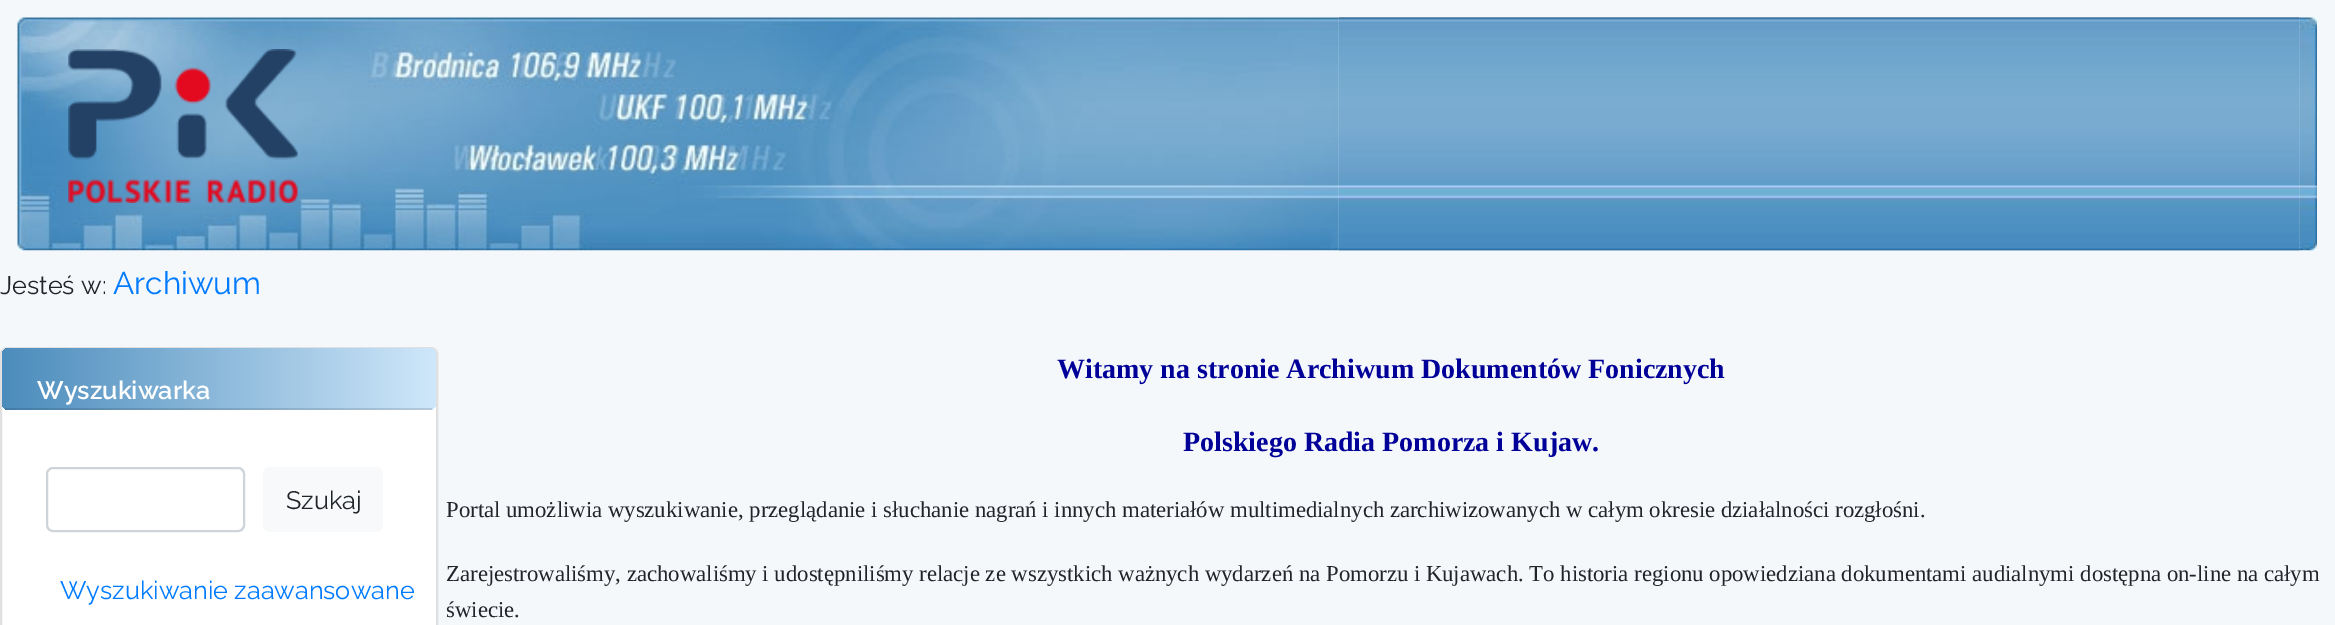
%!PS
<< /PageSize [2335 625] /PageUsesTransparency true >> setpagedevice
/rgb { dup -16 bitshift 255 div exch dup -8 bitshift 255 and 255 div exch 255 and 255 div setrgbcolor } def
/font { [ exch dup neg 0 0 3 -1 roll 0 0 ] selectfont } def
/text { moveto show } def
/alpha { dup .setfillconstantalpha .setstrokeconstantalpha } def
/roundrect { 5 dict begin { /r /h /w /y /x } { exch def } forall
  x r add y moveto x w add y 2 copy h add r arct x w add y h add x 1 index r arct
  x y h add x y r arct x y 2 copy exch w add exch r arct closepath end } def
/picture { 5 dict begin { /h /w /y /x /name } { exch def } forall
  gsave x y translate w h scale
  w h 8 [w 0 0 h 0 0] name (r) file false 3 colorimage grestore end } def
0 .pushpdf14devicefilter
0 625 translate 1 -1 scale
4 setmiterlimit
/s1 { /Raleway-Regular 25.25 font 16#212529 rgb } def
/s2 { /Raleway-Regular 31.5 font 16#007BFF rgb } def
/s3 { /Raleway-SemiBold 25.25 font 16#FFFFFF rgb } def
/s4 { /Raleway-Regular 25.25 font 16#007BFF rgb } def
/s5 { /LiberationSerif-Bold 28 font 16#000099 rgb } def
/s6 { /LiberationSerif-Regular 22.75 font 16#212529 rgb } def
16#F5F8FA rgb
0 0 2335 625 rectfill
(pic1.raw) 17 17 1322 234 picture
(pic2.raw) 68 49 230 154 picture
(pic3.raw) 1338 17 962 234 picture
(pic4.raw) 1338 17 962 234 picture
(pic5.raw) 2299 17 18 234 picture
s1
(Jesteś w:) 0 294 text
s2
(Archiwum) 113 294 text
16#FFFFFF rgb
0 347 438 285 7 roundrect fill
0.12 alpha
16#000000 rgb
2 setlinewidth
1 348 436 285 6 roundrect stroke
1 alpha
gsave 2 348 434 62 7 roundrect clip newpath
<< /ShadingType 2 /ColorSpace /DeviceRGB /Coords [1.8 378 436 378] /Extend [true true] /Function << /FunctionType 2 /Domain [0 1] /C0 [0.294 0.549 0.737] /C1 [0.812 0.906 0.98] /N 1 >> >> shfill grestore
0.12 alpha
5 408 427 2 rectfill
1 alpha
s3
(Wyszukiwarka) 37 399 text
16#CED4DA rgb
47 468 197 63 6 roundrect stroke
16#F8F9FA rgb
263 467 120 65 7 roundrect fill
s1
(Szukaj) 286 509 text
s4
(Wyszukiwanie zaawansowane) 60 599 text
s5
(Witamy na stronie Archiwum Dokumentów Fonicznych) 1057 378 text
(Polskiego Radia Pomorza i Kujaw.) 1183 451 text
s6
(Portal umożliwia wyszukiwanie, przeglądanie i słuchanie nagrań i innych materiałów multimedialnych zarchiwizowanych w całym okresie działalności rozgłośni.) 446 517 text
(Zarejestrowaliśmy, zachowaliśmy i udostępniliśmy relacje ze wszystkich ważnych wydarzeń na Pomorzu i Kujawach. To historia regionu opowiedziana dokumentami audialnymi dostępna on-line na całym) 446 581 text
(świecie.) 446 617 text
.poppdf14devicefilter showpage
